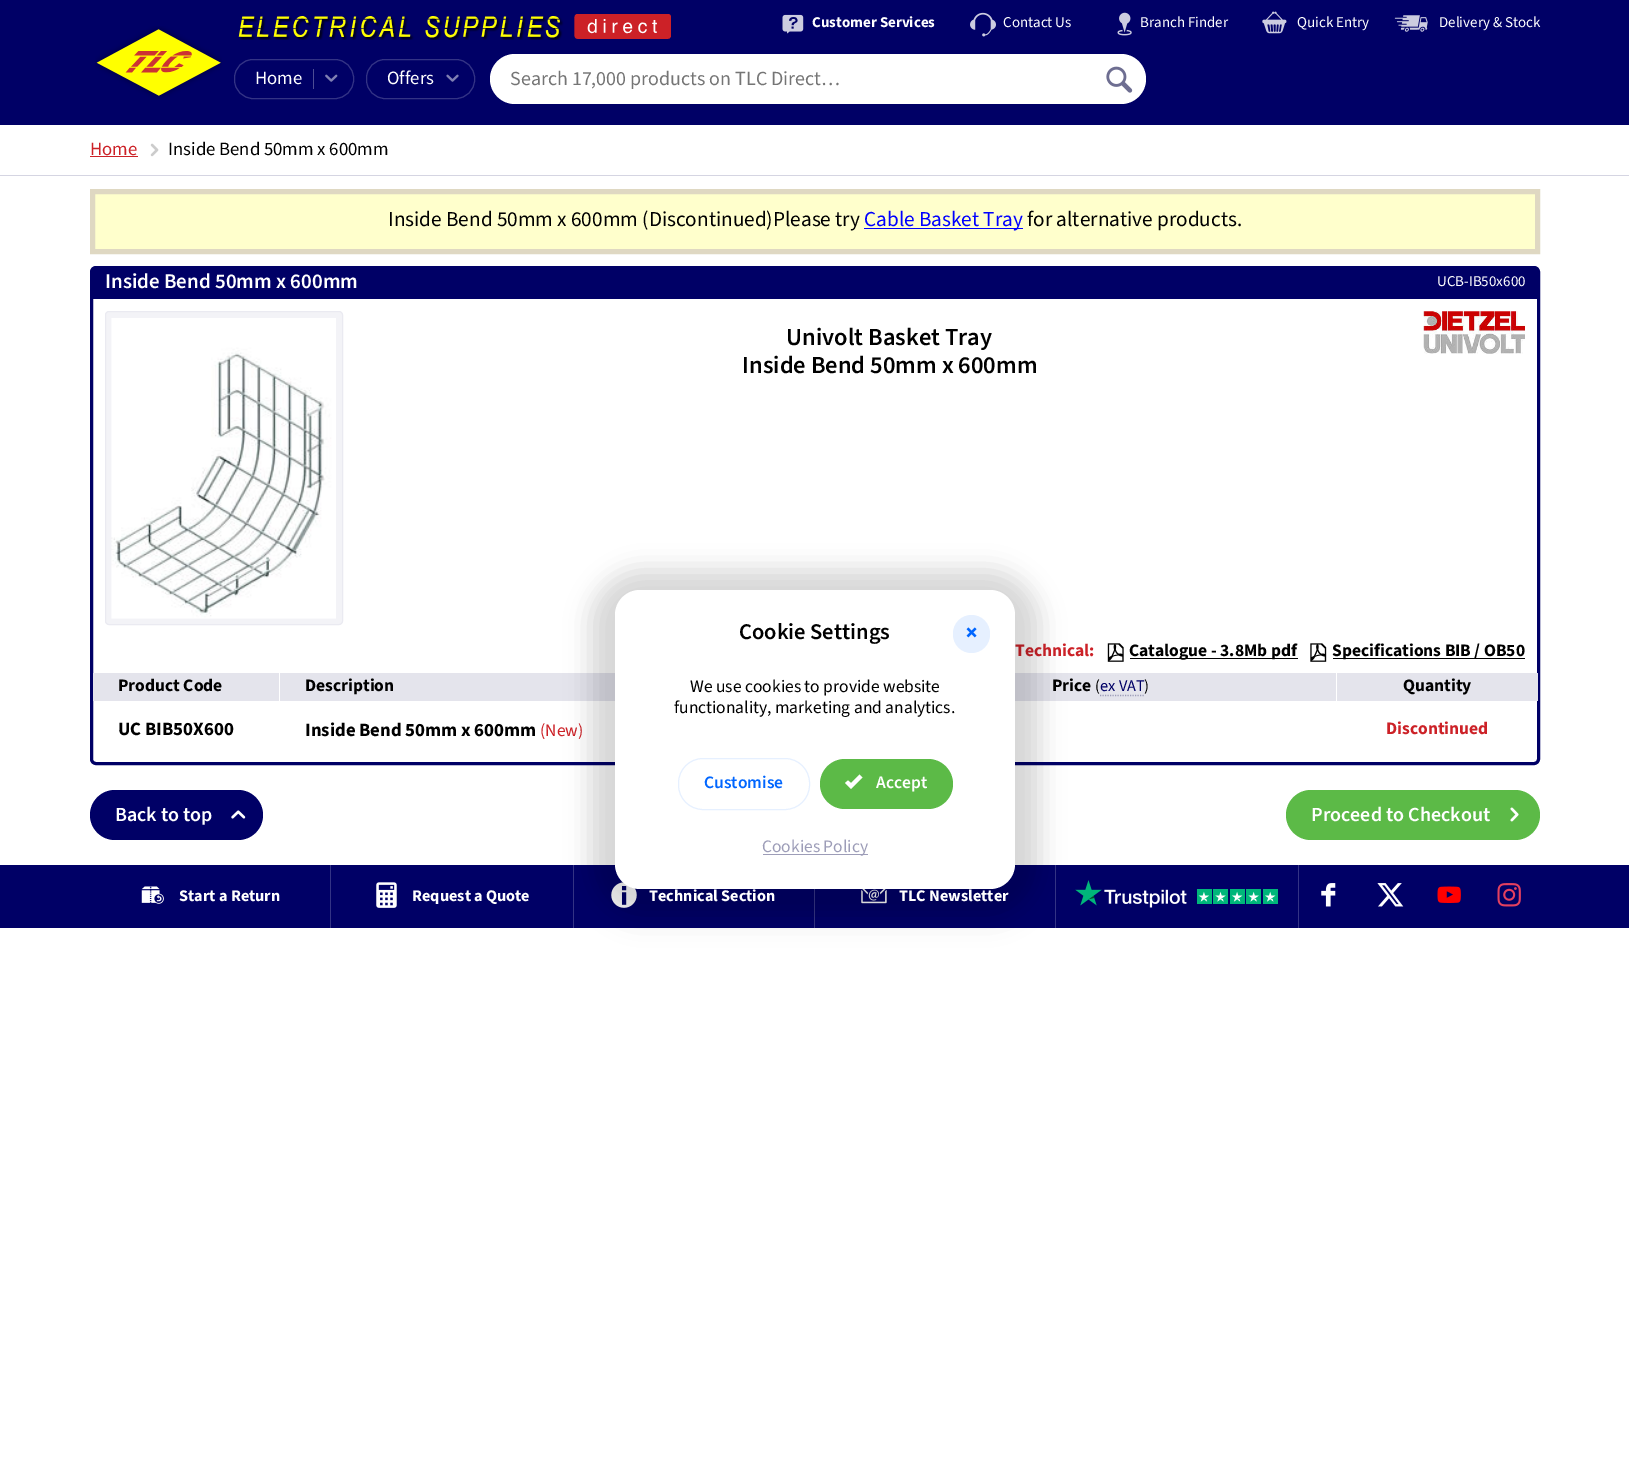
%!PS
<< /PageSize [1629 1477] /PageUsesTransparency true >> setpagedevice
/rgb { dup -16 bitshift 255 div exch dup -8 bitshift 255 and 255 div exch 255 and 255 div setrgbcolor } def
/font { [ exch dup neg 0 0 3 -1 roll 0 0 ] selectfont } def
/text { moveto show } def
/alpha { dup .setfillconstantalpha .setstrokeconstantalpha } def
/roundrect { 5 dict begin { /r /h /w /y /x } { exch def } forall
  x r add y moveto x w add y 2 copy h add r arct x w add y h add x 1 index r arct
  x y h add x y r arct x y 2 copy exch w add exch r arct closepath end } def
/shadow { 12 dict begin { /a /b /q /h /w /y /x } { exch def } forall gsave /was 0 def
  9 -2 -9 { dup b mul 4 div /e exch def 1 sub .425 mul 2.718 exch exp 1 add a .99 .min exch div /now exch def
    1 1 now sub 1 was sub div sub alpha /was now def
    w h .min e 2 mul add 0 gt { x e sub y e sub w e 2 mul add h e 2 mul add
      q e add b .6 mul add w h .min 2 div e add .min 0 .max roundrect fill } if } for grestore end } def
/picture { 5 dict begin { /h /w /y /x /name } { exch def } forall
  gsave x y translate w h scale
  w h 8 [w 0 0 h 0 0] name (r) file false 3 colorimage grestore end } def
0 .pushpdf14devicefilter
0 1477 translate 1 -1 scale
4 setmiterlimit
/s1 { /SourceSans3-Bold 15 font 16#FFFFFF rgb } def
/s2 { /SourceSans3-Regular 15 font 16#FFFFFF rgb } def
/s3 { /SourceSans3-Regular 18.75 font 16#FFFFFF rgb } def
/s4 { /SourceSans3-Regular 20 font 16#757575 rgb } def
/s5 { /SourceSans3-Regular 18.75 font 16#CC2127 rgb } def
/s6 { /SourceSans3-Regular 18.75 font 16#000000 rgb } def
/s7 { /SourceSans3-Regular 21.25 font 16#000000 rgb } def
/s8 { /SourceSans3-Regular 21.25 font 16#0000FF rgb } def
/s9 { /SourceSans3-SemiBold 21 font 16#FFFFFF rgb } def
/s10 { /SourceSans3-SemiBold 24.5 font 16#000000 rgb } def
/s11 { /SourceSans3-Bold 17.5 font 16#CC2127 rgb } def
/s12 { /SourceSans3-Bold 17.5 font 16#000000 rgb } def
/s13 { /SourceSans3-Regular 16.25 font 16#000000 rgb } def
/s14 { /SourceSans3-Regular 16.25 font 16#000066 rgb } def
/s15 { /SourceSans3-Bold 18.75 font 16#000000 rgb } def
/s16 { /SourceSans3-Regular 17.5 font 16#CC2127 rgb } def
/s17 { /SourceSans3-SemiBold 20 font 16#FFFFFF rgb } def
/s18 { /SourceSans3-SemiBold 22.5 font 16#000000 rgb } def
/s19 { /SourceSans3-Regular 17.5 font 16#000000 rgb } def
/s20 { /SourceSans3-SemiBold 17.5 font 16#0066FF rgb } def
/s21 { /SourceSans3-SemiBold 17.5 font 16#FFFFFF rgb } def
/s22 { /SourceSans3-Regular 17.5 font 16#9D9DB8 rgb } def
/s23 { /SourceSans3-Bold 16.25 font 16#FFFFFF rgb } def
16#FFFFFF rgb
0 0 1629 1477 rectfill
16#000066 rgb
0 0 1629 125 rectfill
(pic1.raw) 238 14 433 26 picture
(pic2.raw) 782 14 22 20 picture
s1
(Customer Services) 812 27 text
(pic3.raw) 970 12 26 25 picture
s2
(Contact Us) 1003 27 text
(pic4.raw) 1117 12 15 24 picture
(Branch Finder) 1140 27 text
(pic5.raw) 1262 11 25 23 picture
(Quick Entry) 1297 27 text
(pic6.raw) 1394 15 34 17 picture
(Delivery & Stock) 1439 27 text
(pic7.raw) 95 26 127 73 picture
16#333385 rgb
234.5 59.5 119 39 18.5 roundrect stroke
s3
(Home) 255 84 text
16#4D4D94 rgb
313 69 1 20 rectfill
(pic8.raw) 325 74 13 8 picture
16#333385 rgb
366.5 59.5 108 39 18.5 roundrect stroke
s3
(Offers) 387 84 text
(pic9.raw) 446 74 13 8 picture
490 54 656 50 25 roundrect fill
s4
(Search 17,000 products on TLC Direct…) 510 85 text
(pic10.raw) 1106 66 27 27 picture
16#D5D5E2 rgb
0 175 1629 1 rectfill
s5
(Home) 90 155 text
90 156 48 1 rectfill
(pic11.raw) 150 143 9 14 picture
s6
(Inside Bend 50mm x 600mm) 168 155 text
16#FFFFCC rgb
92.5 191.5 moveto 1537.5 191.5 lineto 1537.5 251.5 lineto 92.5 251.5 lineto closepath gsave fill grestore
16#DFD8C2 rgb
5 setlinewidth
stroke
s7
(Inside Bend 50mm x 600mm \(Discontinued\)Please try) 388 226 text
16#0000FF rgb
864 228 159 1 rectfill
(Cable Basket Tray) 864 226 text
s7
(for alternative products.) 1027 226 text
16#000066 rgb
3 setlinewidth
91.5 267.5 1447 496 4.5 roundrect stroke
93 269 1444 30 rectfill
s9
(Inside Bend 50mm x 600mm) 105 288 text
s2
(UCB-IB50x600) 1437 286 text
16#F3F3F7 rgb
105.5 311.5 237 313 3.5 roundrect gsave fill grestore
16#EAEAF1 rgb
1 setlinewidth
stroke
(pic12.raw) 111 318 225 301 picture
s10
(Univolt Basket Tray) 786 345 text
(Inside Bend 50mm x 600mm) 742 373 text
(pic13.raw) 1423 311 102 43 picture
s11
(Technical:) 1015 656 text
(pic14.raw) 1107 643 17 19 picture
16#000000 rgb
1130 658 168 1 rectfill
(Catalogue - 3.8Mb pdf) 1129 656 text
(pic15.raw) 1310 643 17 19 picture
1333 658 192 1 rectfill
(Specifications BIB / OB50) 1332 656 text
16#E4E4EC rgb
93 673 1445 28 rectfill
16#FFFFFF rgb
279 673 1 28 rectfill
s12
(Product Code) 118 691 text
(Description) 305 691 text
16#FFFFFF rgb
1336 673 1 28 rectfill
s12
(Price) 1052 691 text
s13
(\() 1095 691 text
16#9D9DB8 rgb
1.2 setlinewidth
[1.25 1.25] 0 setdash
1100 695.5 moveto 1144 695.5 lineto stroke
s14
(ex VAT) 1100 691 text
s13
(\)) 1144 691 text
s12
(Quantity) 1403 691 text
s15
(UC BIB50X600) 118 735 text
(Inside Bend 50mm x 600mm) 305 736 text
s16
(\(New\)) 540 736 text
s11
(Discontinued) 1386 734 text
16#000066 rgb
90 790 173 50 25 roundrect fill
s17
(Back to top) 115 821 text
(pic16.raw) 231 810 15 9 picture
16#5CBA47 rgb
1286 790 254 50 25 roundrect fill
s17
(Proceed to Checkout) 1311 821 text
(pic17.raw) 1510 807 9 15 picture
16#000066 rgb
0 865 1629 63 rectfill
16#333385 rgb
573 865 1 63 rectfill
814 889 1 39 rectfill
(pic21.raw) 611 882 26 26 picture
1055 865 1 63 rectfill
(pic22.raw) 861 889 26 15 picture
(pic23.raw) 1075 880 203 28 picture
16#000000 rgb
590 565 450 349 50 12.5 0.04 shadow
590 571 450 349 50 12.5 0.12 shadow
16#FFFFFF rgb
615 590 400 299 25 roundrect fill
s18
(Cookie Settings) 739 639 text
16#E6F0FF rgb
953 615 37 38 18.5 roundrect fill
(pic18.raw) 966 627 11 11 picture
s19
(We use cookies to provide website) 690 692 text
(functionality, marketing and analytics.) 674 713 text
16#E6F0FF rgb
1 setlinewidth
[] 0 setdash
678.5 758.5 131 51 24.5 roundrect stroke
s20
(Customise) 704 788 text
16#5CBA47 rgb
820 759 133 50 25 roundrect fill
16#FFFFFF rgb
859.5 774.5 moveto 851 783 lineto 848 780.5 lineto 845 783 lineto 851 789 lineto 862.5 777.5 lineto closepath fill
(Accept) 876 788 text
16#9D9DB8 rgb
763 854 105 1 rectfill
s22
(Cookies Policy) 762 852 text
16#333385 rgb
330 865 1 63 rectfill
(pic19.raw) 141 886 23 18 picture
s23
(Start a Return) 179 901 text
(pic20.raw) 376 882 21 26 picture
(Request a Quote) 412 901 text
(Technical Section) 649 901 text
(TLC Newsletter) 899 901 text
16#333385 rgb
1298 865 1 63 rectfill
(pic24.raw) 1321 883 15 24 picture
(pic25.raw) 1377 883 27 24 picture
(pic26.raw) 1437 886 24 17 picture
(pic27.raw) 1497 883 24 24 picture
.poppdf14devicefilter showpage
